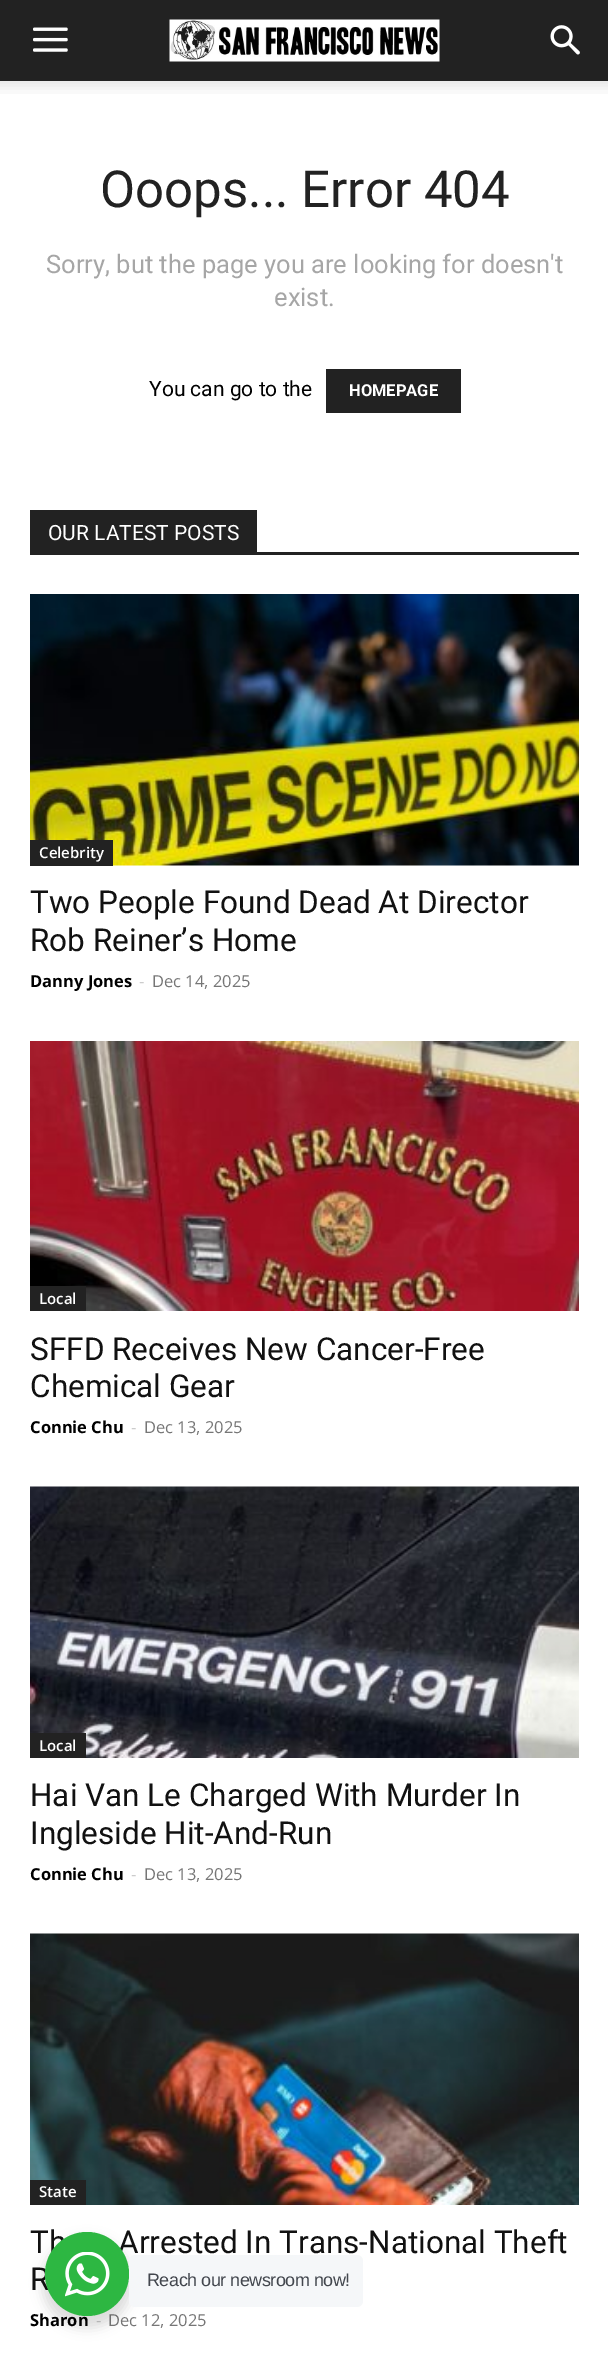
%!PS
<< /PageSize [608 2360] /PageUsesTransparency true >> setpagedevice
/rgb { dup -16 bitshift 255 div exch dup -8 bitshift 255 and 255 div exch 255 and 255 div setrgbcolor } def
/font { [ exch dup neg 0 0 3 -1 roll 0 0 ] selectfont } def
/text { moveto show } def
/alpha { dup .setfillconstantalpha .setstrokeconstantalpha } def
/circle { newpath 0 360 arc closepath } def
/roundrect { 5 dict begin { /r /h /w /y /x } { exch def } forall
  x r add y moveto x w add y 2 copy h add r arct x w add y h add x 1 index r arct
  x y h add x y r arct x y 2 copy exch w add exch r arct closepath end } def
/shadow { 12 dict begin { /a /b /q /h /w /y /x } { exch def } forall gsave /was 0 def
  9 -2 -9 { dup b mul 4 div /e exch def 1 sub .425 mul 2.718 exch exp 1 add a .99 .min exch div /now exch def
    1 1 now sub 1 was sub div sub alpha /was now def
    w h .min e 2 mul add 0 gt { x e sub y e sub w e 2 mul add h e 2 mul add
      q e add b .6 mul add w h .min 2 div e add .min 0 .max roundrect fill } if } for grestore end } def
/picture { 5 dict begin { /h /w /y /x /name } { exch def } forall
  gsave x y translate w h scale
  w h 8 [w 0 0 h 0 0] name (r) file false 3 colorimage grestore end } def
0 .pushpdf14devicefilter
0 2360 translate 1 -1 scale
4 setmiterlimit
/s1 { /Roboto-Regular 51 font 16#222222 rgb } def
/s2 { /Roboto-Regular 25.5 font 16#A6A6A6 rgb } def
/s3 { /Roboto-Regular 21 font 16#000000 rgb } def
/s4 { /Roboto-Bold 16.5 font 16#FFFFFF rgb } def
/s5 { /Roboto-Regular 21 font 16#FFFFFF rgb } def
/s6 { /OpenSans-SemiBold 15 font 16#FFFFFF rgb } def
/s7 { /Roboto-Regular 31.5 font 16#111111 rgb } def
/s8 { /OpenSans-Bold 16.5 font 16#000000 rgb } def
/s9 { /OpenSans-Regular 16.5 font 16#CCCCCC rgb } def
/s10 { /OpenSans-Regular 16.5 font 16#767676 rgb } def
16#FFFFFF rgb
0 0 608 2360 rectfill
16#222222 rgb
0 0 608 81 rectfill
(pic1.raw) 33 27 35 25 picture
(pic2.raw) 169 19 271 43 picture
(pic3.raw) 550 25 30 30 picture
(pic4.raw) 0 81 608 13 picture
s1
(Ooops... Error 404) 100 207 text
s2
(Sorry, but the page you are looking for doesn't) 46 273 text
(exist.) 274 306 text
s3
(You can go to the) 149 396 text
16#222222 rgb
326 369 135 44 rectfill
s4
(HOMEPAGE) 349 396 text
16#222222 rgb
30 552 549 3 rectfill
30 510 227 42 rectfill
s5
(OUR LATEST POSTS) 48 540 text
(pic5.raw) 30 594 549 272 picture
16#222222 rgb
30 840 83 26 rectfill
s6
(Celebrity) 39 858 text
s7
(Two People Found Dead At Director) 30 913 text
(Rob Reiner’s Home) 30 951 text
s8
(Danny Jones) 30 987 text
s9
(-) 139 987 text
s10
(Dec 14, 2025) 152 987 text
(pic6.raw) 30 1041 549 270 picture
16#222222 rgb
30 1286 56 25 rectfill
s6
(Local) 39 1304 text
s7
(SFFD Receives New Cancer-Free) 30 1360 text
(Chemical Gear) 30 1397 text
s8
(Connie Chu) 30 1433 text
s9
(-) 131 1433 text
s10
(Dec 13, 2025) 144 1433 text
(pic7.raw) 30 1486 549 272 picture
16#222222 rgb
30 1733 56 25 rectfill
s6
(Local) 39 1751 text
s7
(Hai Van Le Charged With Murder In) 30 1806 text
(Ingleside Hit-And-Run) 30 1844 text
s8
(Connie Chu) 30 1880 text
s9
(-) 131 1880 text
s10
(Dec 13, 2025) 144 1880 text
(pic8.raw) 30 1933 549 272 picture
16#222222 rgb
30 2180 56 25 rectfill
s6
(State) 39 2197 text
s7
(Th) 30 2253 text
(Arrested In Trans-National Theft) 118 2253 text
(R) 30 2290 text
s8
(Sharon) 30 2326 text
s9
(-) 96 2326 text
s10
(Dec 12, 2025) 108 2326 text
16#000000 rgb
42 2238 90 90 45 6 0.14 shadow
16#2DB742 rgb
87 2274 42 circle fill
(pic9.raw) 65 2252 45 45 picture
16#F5F7F9 rgb
129 2255 234 52 6 roundrect fill
/LiberationSans-Regular 18 font
16#43474E rgb
147 2286 moveto -0.5 0 (Reach our newsroom now!) ashow
.poppdf14devicefilter showpage
